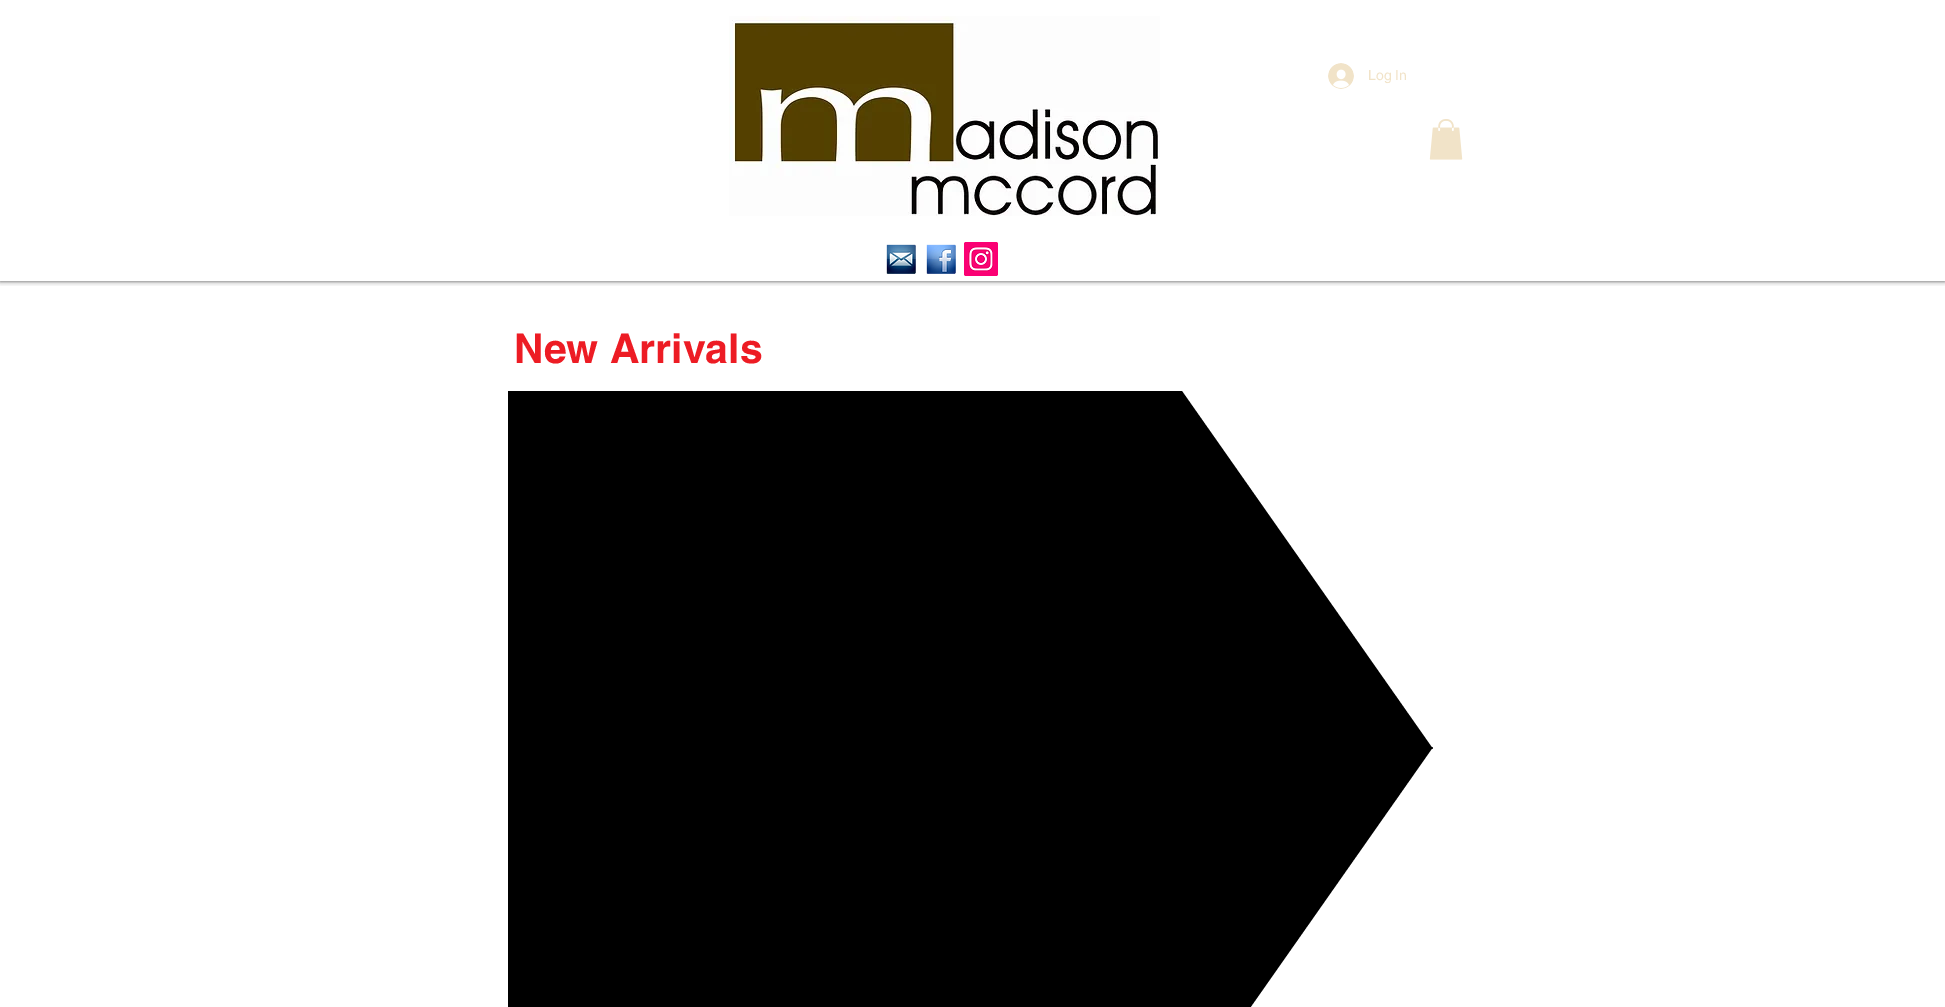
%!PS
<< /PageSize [1945 1007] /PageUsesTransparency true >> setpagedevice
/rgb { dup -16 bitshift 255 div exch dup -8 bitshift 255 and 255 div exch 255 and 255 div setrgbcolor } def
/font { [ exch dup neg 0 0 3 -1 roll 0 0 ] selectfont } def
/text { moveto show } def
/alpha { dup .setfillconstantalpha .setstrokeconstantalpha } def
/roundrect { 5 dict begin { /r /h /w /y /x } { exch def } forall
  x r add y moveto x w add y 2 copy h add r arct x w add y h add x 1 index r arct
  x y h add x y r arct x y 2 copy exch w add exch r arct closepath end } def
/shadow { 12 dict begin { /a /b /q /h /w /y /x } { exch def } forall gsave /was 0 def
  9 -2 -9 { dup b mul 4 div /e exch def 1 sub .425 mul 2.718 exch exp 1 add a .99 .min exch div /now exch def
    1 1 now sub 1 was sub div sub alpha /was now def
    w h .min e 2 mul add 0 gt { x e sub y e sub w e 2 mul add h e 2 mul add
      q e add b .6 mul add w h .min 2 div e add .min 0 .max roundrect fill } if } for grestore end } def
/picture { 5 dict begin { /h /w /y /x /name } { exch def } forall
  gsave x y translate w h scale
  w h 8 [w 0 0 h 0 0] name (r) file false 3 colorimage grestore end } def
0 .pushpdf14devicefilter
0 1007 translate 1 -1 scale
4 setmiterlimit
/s1 { /helvetica-Regular 14 font 16#F1E3C8 rgb } def
/s2 { /helvetica-Bold 41 font 16#ED1C24 rgb } def
16#FFFFFF rgb
0 0 1945 1007 rectfill
gsave
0 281 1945 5 rectclip
16#000000 rgb
0 0 1945 281 0 2.5 0.7 shadow
grestore
(pic1.raw) 729 16 431 200 picture
(pic2.raw) 1328 63 26 26 picture
s1
(Log In) 1368 80 text
(pic3.raw) 1429 119 34 41 picture
(pic4.raw) 886 244 30 30 picture
(pic5.raw) 926 244 30 30 picture
(pic6.raw) 964 242 34 34 picture
s2
(New Arrivals) 514 363 text
gsave
508 391 925 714 rectclip
16#000000 rgb
158 747 moveto 1433 747 lineto 1083 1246 lineto 158 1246 lineto closepath fill
1433 749 moveto 158 749 lineto 158 250 lineto 1083 250 lineto closepath fill
grestore
.poppdf14devicefilter showpage
